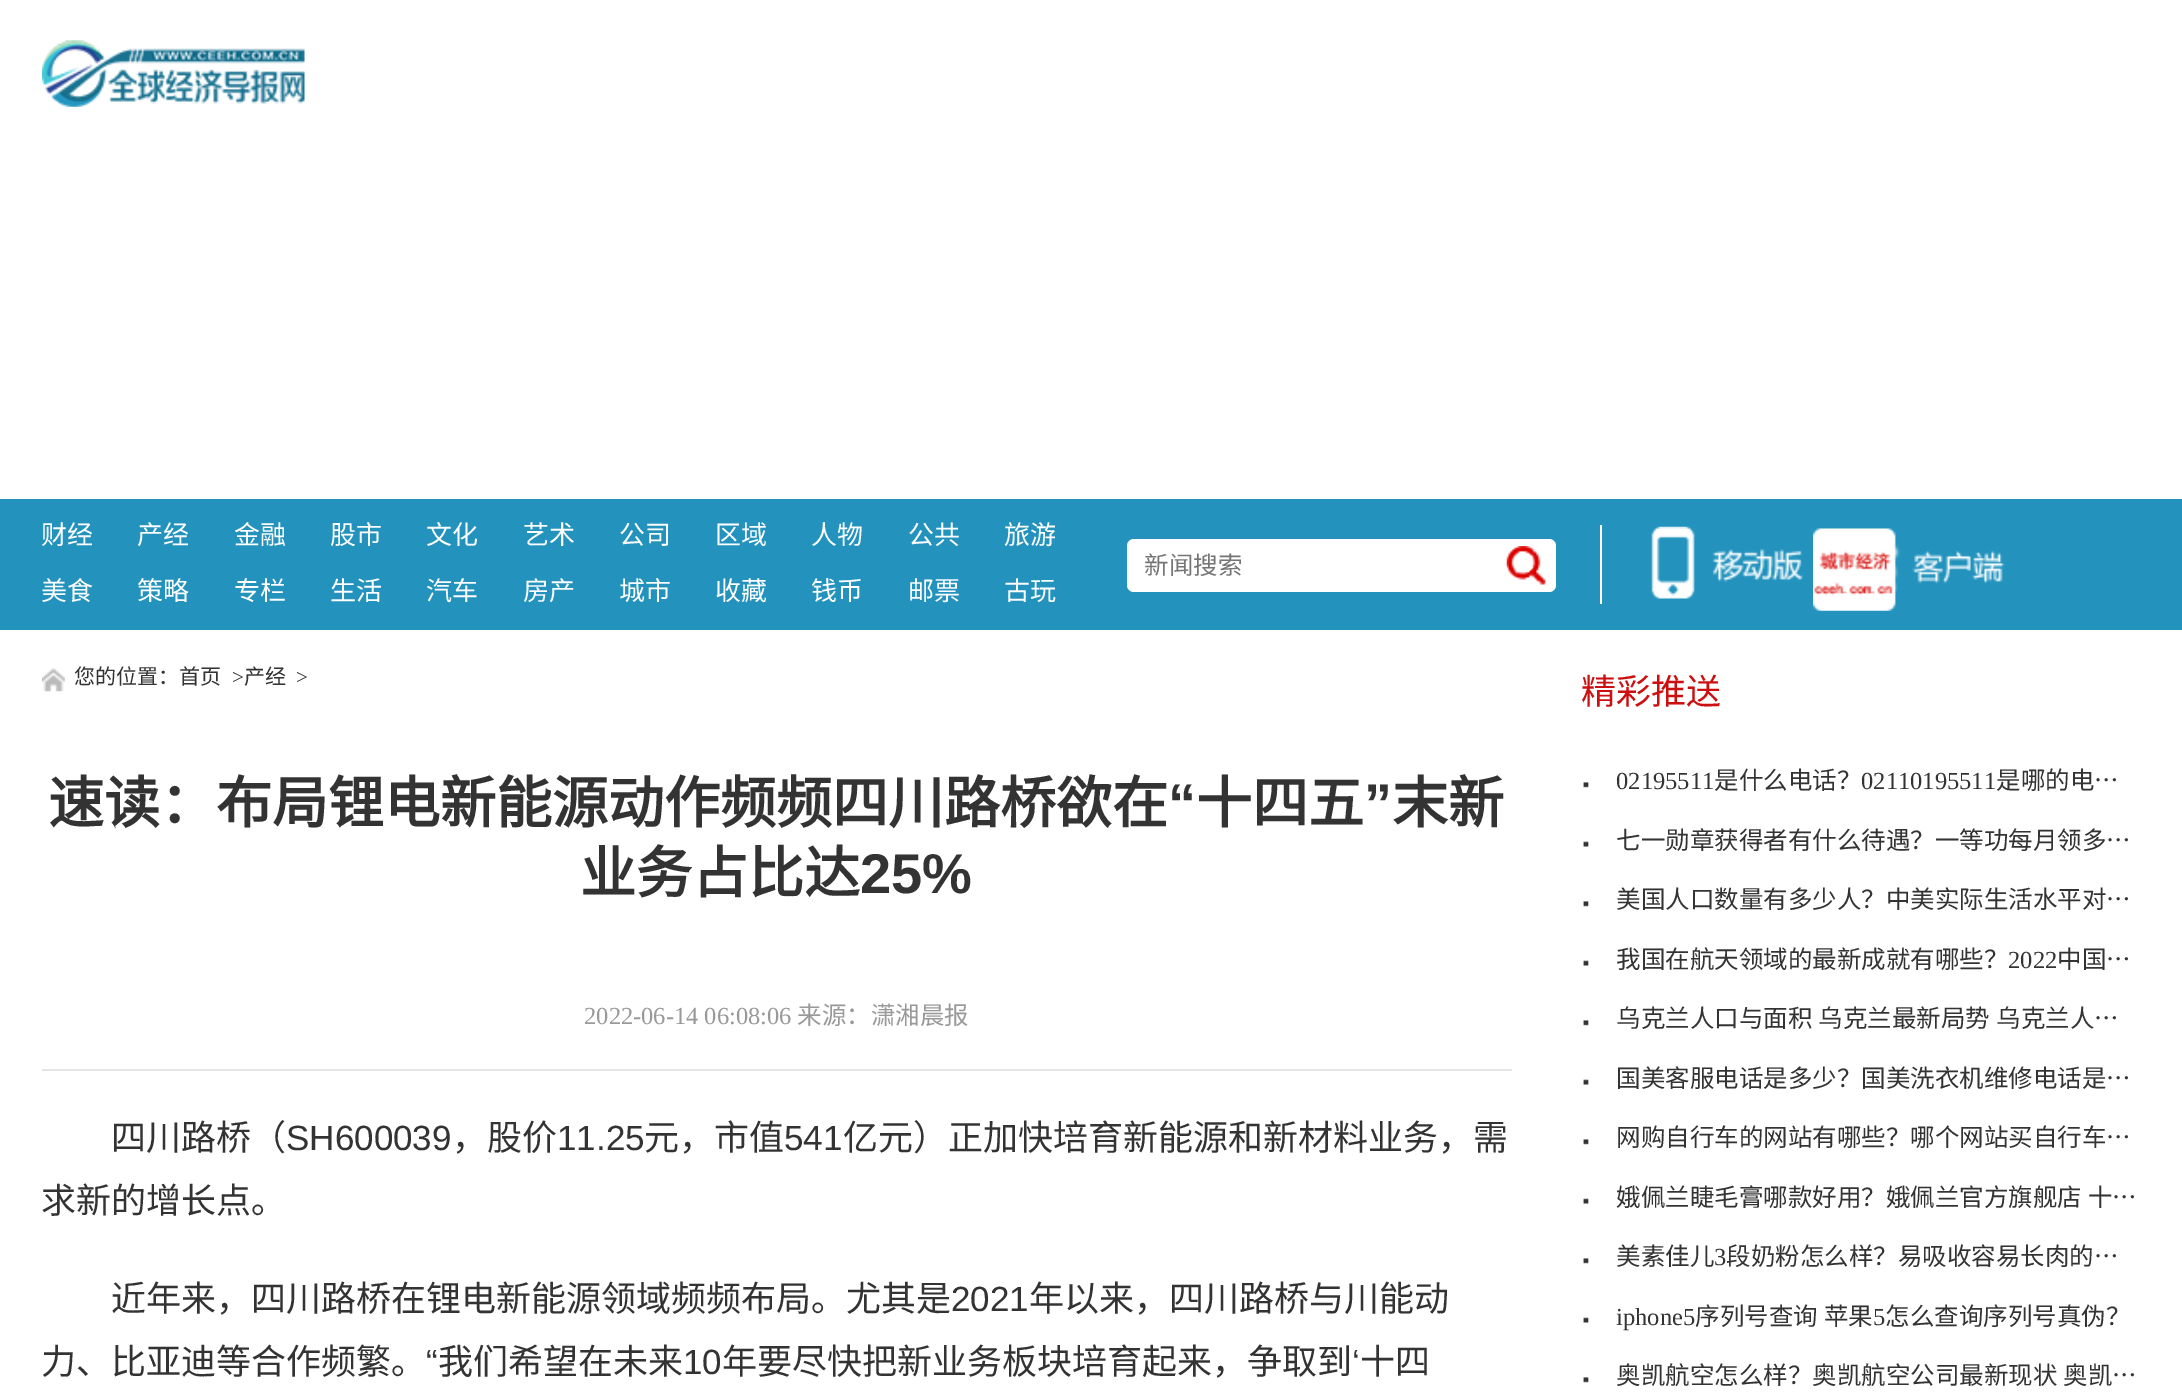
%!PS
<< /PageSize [2182 1392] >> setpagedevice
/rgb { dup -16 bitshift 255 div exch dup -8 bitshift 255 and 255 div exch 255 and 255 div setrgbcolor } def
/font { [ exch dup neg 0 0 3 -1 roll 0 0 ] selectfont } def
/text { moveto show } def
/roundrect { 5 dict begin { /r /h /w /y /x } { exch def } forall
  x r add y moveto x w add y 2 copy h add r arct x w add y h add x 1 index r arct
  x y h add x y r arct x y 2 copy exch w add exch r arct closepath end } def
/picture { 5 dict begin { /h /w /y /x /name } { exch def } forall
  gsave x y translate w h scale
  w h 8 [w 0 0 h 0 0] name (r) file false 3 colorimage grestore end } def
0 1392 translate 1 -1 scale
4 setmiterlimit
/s1 { /NotoSansCJKSC-Regular 26 font 16#FFFFFF rgb } def
/s2 { /NotoSansCJKSC-Regular 24.5 font 16#757575 rgb } def
/s3 { /NotoSansCJKSC-Regular 21 font 16#333333 rgb } def
/s4 { /LiberationSerif-Regular 21 font 16#333333 rgb } def
/s5 { /NotoSansCJKSC-Bold 56 font 16#333333 rgb } def
/s6 { /LiberationSans-Bold 56 font 16#333333 rgb } def
/s7 { /LiberationSerif-Regular 24.5 font 16#999999 rgb } def
/s8 { /NotoSansCJKSC-Regular 24.5 font 16#999999 rgb } def
/s9 { /NotoSansCJKSC-Regular 35 font 16#333333 rgb } def
/s10 { /LiberationSans-Regular 35 font 16#333333 rgb } def
/s11 { /NotoSansCJKSC-Regular 35 font 16#CC0F10 rgb } def
/s12 { /LiberationSerif-Regular 24.5 font 16#333333 rgb } def
/s13 { /NotoSansCJKSC-Regular 24.5 font 16#333333 rgb } def
16#FFFFFF rgb
0 0 2182 1392 rectfill
(pic1.raw) 42 40 263 67 picture
16#2393BE rgb
0 499 2182 131 rectfill
s1
(财经) 41 544 text
(产经) 137 544 text
(金融) 234 544 text
(股市) 330 544 text
(文化) 426 544 text
(艺术) 523 544 text
(公司) 619 544 text
(区域) 715 544 text
(人物) 811 544 text
(公共) 908 544 text
(旅游) 1004 544 text
(美食) 41 600 text
(策略) 137 600 text
(专栏) 234 600 text
(生活) 330 600 text
(汽车) 426 600 text
(房产) 523 600 text
(城市) 619 600 text
(收藏) 715 600 text
(钱币) 811 600 text
(邮票) 908 600 text
(古玩) 1004 600 text
1127 539 429 53 7 roundrect fill
gsave
1145 546 399 35 rectclip
s2
(新闻搜索) 1144 574 text
grestore
(pic2.raw) 1506 546 40 39 picture
1600 525 2 79 rectfill
(pic3.raw) 1651 526 152 73 picture
(pic4.raw) 1813 528 192 83 picture
(pic5.raw) 42 668 23 24 picture
s3
(您的位置：首页) 74 684 text
s4
(>) 232 684 text
s3
(产经) 244 684 text
s4
(>) 296 684 text
s5
(速读：布局锂电新能源动作频频四川路桥欲在) 48 823 text
s6
(“) 1168 823 text
s5
(十四五) 1196 823 text
s6
(”) 1364 823 text
s5
(末新) 1392 823 text
(业务占比达) 580 893 text
s6
(25%) 860 893 text
16#E5E5E5 rgb
42 1069 1470 2 rectfill
s7
(2022-06-14 06:08:06) 584 1024 text
s8
(来源：潇湘晨报) 797 1024 text
s9
(四川路桥（) 111 1150 text
s10
(SH600039) 286 1150 text
s9
(，股价) 452 1150 text
s10
(11.25) 557 1150 text
s9
(元，市值) 644 1150 text
s10
(541) 784 1150 text
s9
(亿元）正加快培育新能源和新材料业务，需) 843 1150 text
(求新的增长点。) 41 1213 text
(近年来，四川路桥在锂电新能源领域频频布局。尤其是) 111 1311 text
s10
(2021) 951 1311 text
s9
(年以来，四川路桥与川能动) 1029 1311 text
(力、比亚迪等合作频繁。) 41 1374 text
s10
(“) 426 1374 text
s9
(我们希望在未来) 438 1374 text
s10
(10) 683 1374 text
s9
(年要尽快把新业务板块培育起来，争取到 十四) 722 1374 text
s10
(‘) 1352 1374 text
s11
(精彩推送) 1581 704 text
(pic6.raw) 1583 782 6 6 picture
s12
(02195511) 1616 789 text
s13
(是什么电话？) 1714 789 text
s12
(02110195511) 1861 789 text
s13
(是哪的电…) 1996 789 text
(pic7.raw) 1583 841 6 6 picture
(七一勋章获得者有什么待遇？一等功每月领多…) 1616 849 text
(pic6.raw) 1583 901 6 6 picture
(美国人口数量有多少人？中美实际生活水平对…) 1616 908 text
(pic7.raw) 1583 960 6 6 picture
(我国在航天领域的最新成就有哪些？) 1616 968 text
s12
(2022) 2008 968 text
s13
(中国…) 2057 968 text
(pic6.raw) 1583 1020 6 6 picture
1616 1027 moveto 1 0 32 (乌克兰人口与面积 乌克兰最新局势 乌克兰人…) widthshow
(pic7.raw) 1583 1079 6 6 picture
(国美客服电话是多少？国美洗衣机维修电话是…) 1616 1087 text
(pic6.raw) 1583 1139 6 6 picture
(网购自行车的网站有哪些？哪个网站买自行车…) 1616 1146 text
(pic7.raw) 1583 1198 6 6 picture
1616 1206 moveto 1 0 32 (娥佩兰睫毛膏哪款好用？娥佩兰官方旗舰店 十…) widthshow
(pic6.raw) 1583 1258 6 6 picture
(美素佳儿) 1616 1265 text
s12
(3) 1714 1265 text
/NotoSansCJKSC-Regular 24.5 font
1726 1265 moveto 1 0 32 (段奶粉怎么样？易吸收容易长肉的…) widthshow
(pic7.raw) 1583 1317 6 6 picture
s12
(iphone5) 1616 1325 text
/NotoSansCJKSC-Regular 24.5 font
1695 1325 moveto 1 0 32 (序列号查询 苹果) widthshow
s12
(5) 1873 1325 text
s13
(怎么查询序列号真伪？) 1885 1325 text
(pic6.raw) 1583 1377 6 6 picture
1616 1384 moveto 1 0 32 (奥凯航空怎么样？奥凯航空公司最新现状 奥凯…) widthshow
showpage
